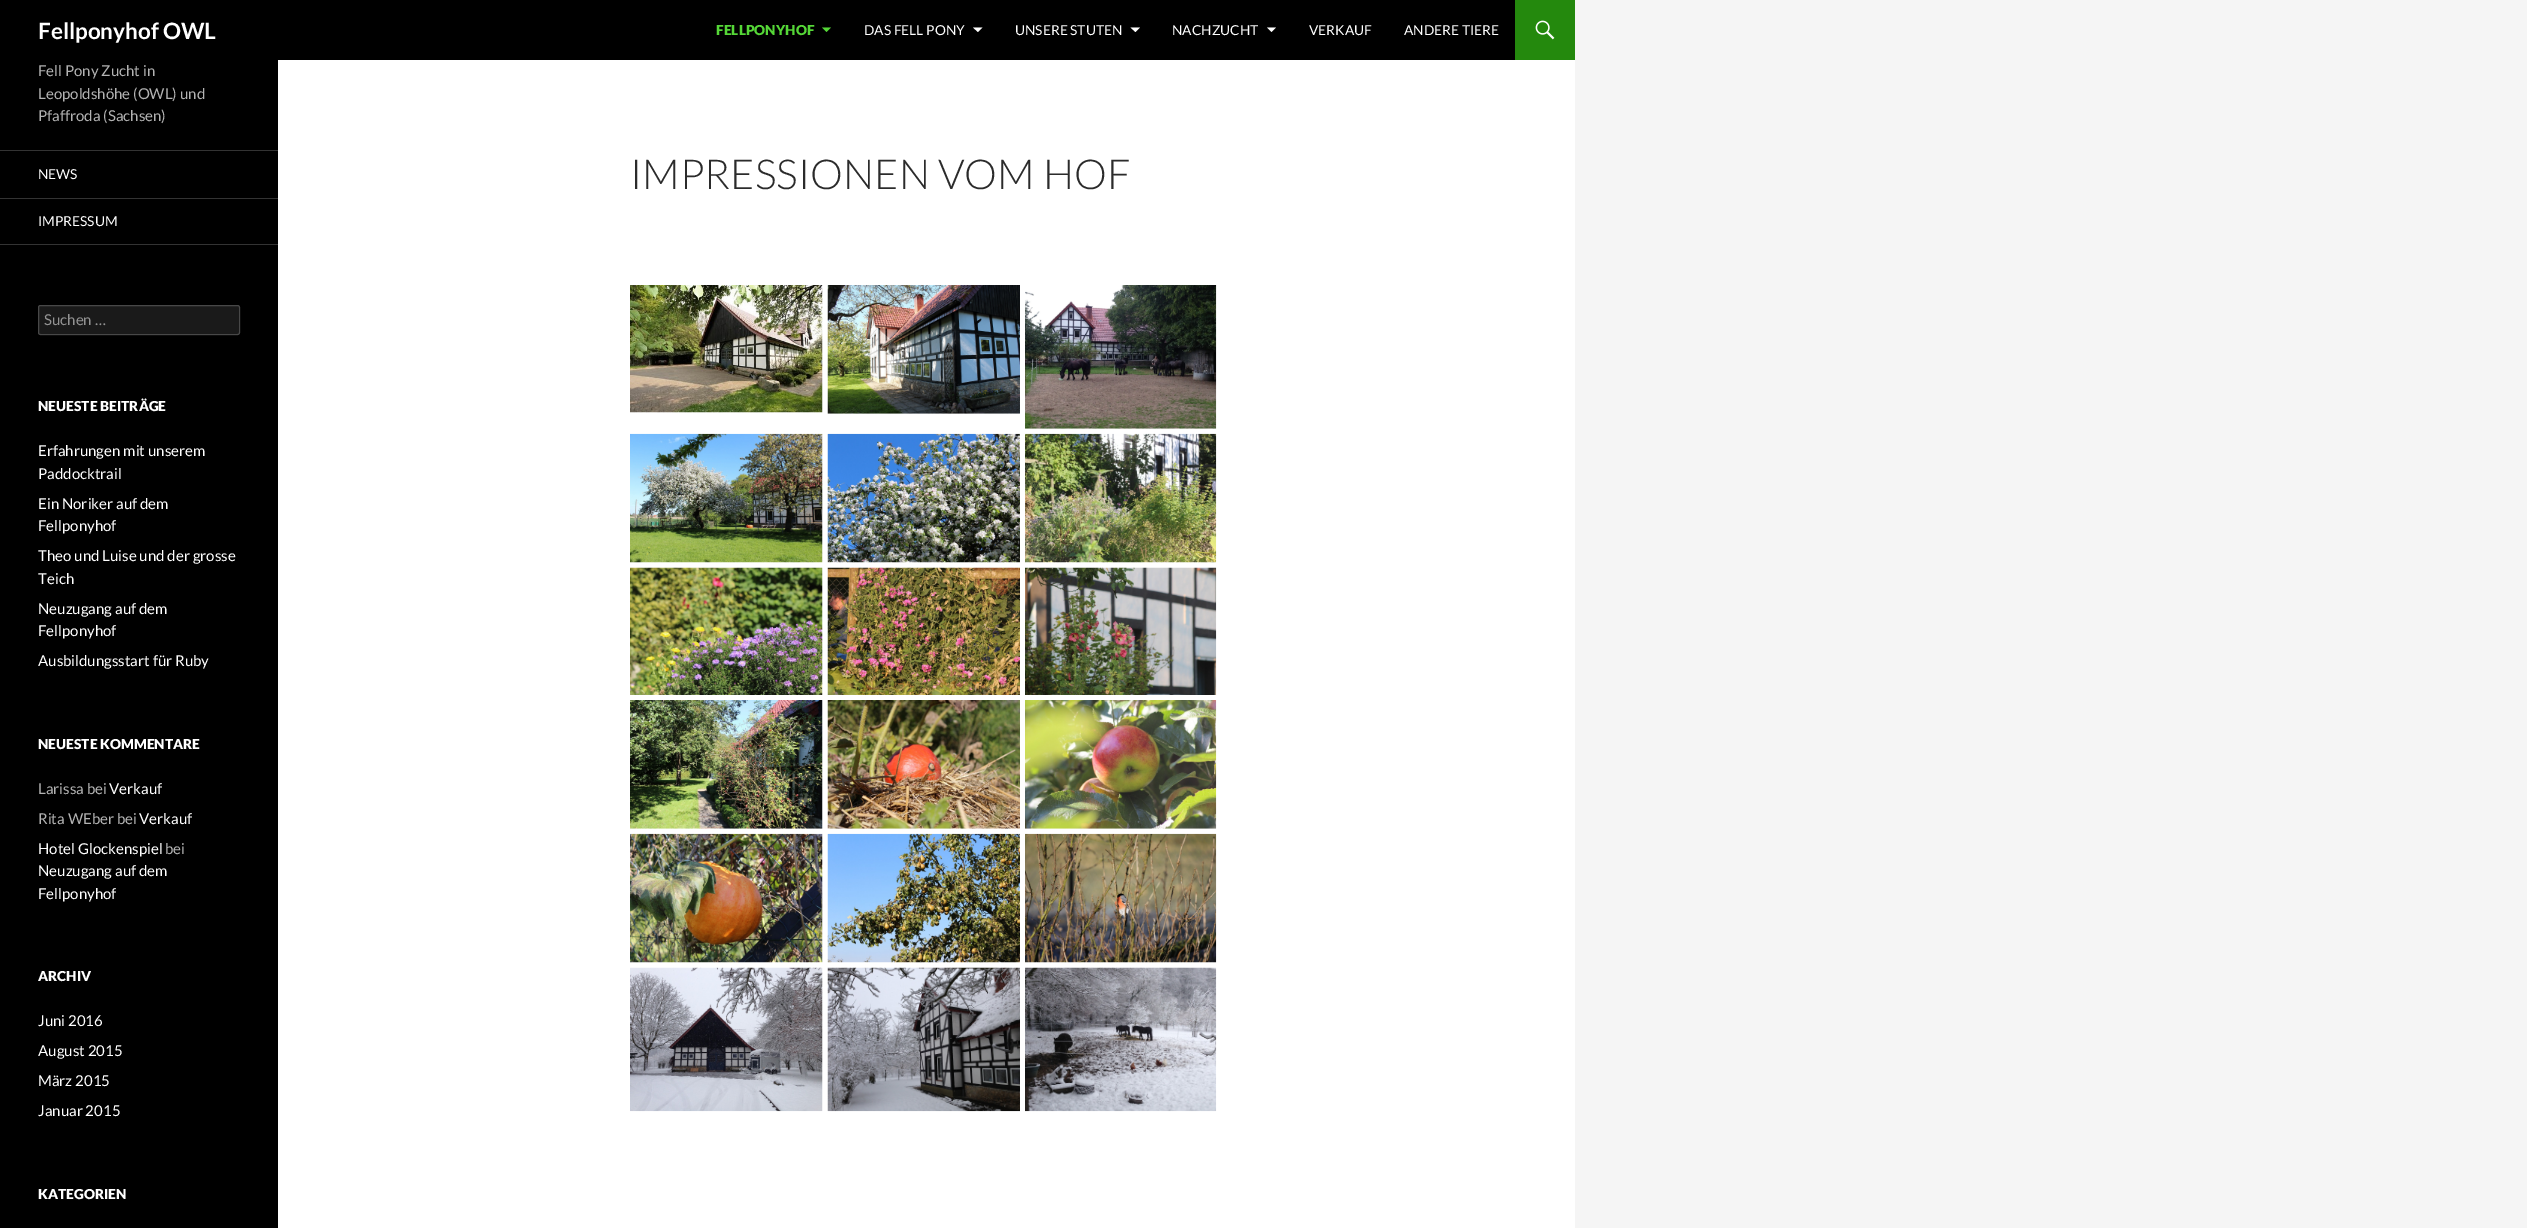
%!PS
<< /PageSize [2527 1228] /PageUsesTransparency true >> setpagedevice
/rgb { dup -16 bitshift 255 div exch dup -8 bitshift 255 and 255 div exch 255 and 255 div setrgbcolor } def
/font { [ exch dup neg 0 0 3 -1 roll 0 0 ] selectfont } def
/text { moveto show } def
/alpha { dup .setfillconstantalpha .setstrokeconstantalpha } def
/roundrect { 5 dict begin { /r /h /w /y /x } { exch def } forall
  x r add y moveto x w add y 2 copy h add r arct x w add y h add x 1 index r arct
  x y h add x y r arct x y 2 copy exch w add exch r arct closepath end } def
/picture { 5 dict begin { /h /w /y /x /name } { exch def } forall
  gsave x y translate w h scale
  w h 8 [w 0 0 h 0 0] name (r) file false 3 colorimage grestore end } def
0 .pushpdf14devicefilter
0 1228 translate 1 -1 scale
4 setmiterlimit
/s1 { /Lato-Bold 22.5 font 16#FFFFFF rgb } def
/s2 { /Lato-Black 13.75 font 16#55D737 rgb } def
/s3 { /Lato-Regular 13.75 font 16#FFFFFF rgb } def
/s4 { /Lato-Regular 15 font 16#B3B3B3 rgb } def
/s5 { /Lato-Regular 15 font 16#939393 rgb } def
/s6 { /Lato-Black 13.75 font 16#FFFFFF rgb } def
/s7 { /Lato-Regular 15 font 16#FFFFFF rgb } def
/s8 { /Lato-Light 41.25 font 16#2B2B2B rgb } def
16#F5F5F5 rgb
0 0 2527 1228 rectfill
16#FFFFFF rgb
278 60 1297 1168 rectfill
16#000000 rgb
0 0 1515 60 rectfill
s1
(Fellponyhof OWL) 38 39 text
s2
(FELLPONYHOF) 716 35 text
822 27.5 moveto 826.5 32 lineto 831 27.5 lineto closepath fill
s3
(DAS FELL PONY) 864 35 text
973 27.5 moveto 978 32 lineto 982.5 27.5 lineto closepath fill
(UNSERE STUTEN) 1015 35 text
1130.5 27.5 moveto 1135.5 32 lineto 1140 27.5 lineto closepath fill
(NACHZUCHT) 1172 35 text
1267 27.5 moveto 1271.5 32 lineto 1276 27.5 lineto closepath fill
(VERKAUF) 1309 35 text
(ANDERE TIERE) 1404 35 text
16#24890D rgb
1515 0 60 60 rectfill
(pic1.raw) 1535 20 20 20 picture
16#000000 rgb
0 60 278 1168 rectfill
s4
(Fell Pony Zucht in) 38 76 text
(Leopoldshöhe \(OWL\) und) 38 99 text
(Pfaffroda \(Sachsen\)) 38 121 text
16#333333 rgb
0 244 278 1 rectfill
0 150 278 1 rectfill
s3
(NEWS) 38 179 text
16#333333 rgb
0 198 278 1 rectfill
s3
(IMPRESSUM) 38 226 text
16#1A1A1A rgb
38 305 202 30 2.5 roundrect fill
0.2 alpha
16#FFFFFF rgb
38.5 305.5 201 29 2 roundrect stroke
1 alpha
s5
(Suchen …) 44 325 text
s6
(NEUESTE BEITRÄGE) 38 411 text
s7
(Erfahrungen mit unserem) 38 456 text
(Paddocktrail) 38 479 text
(Ein Noriker auf dem) 38 509 text
(Fellponyhof) 38 531 text
(Theo und Luise und der grosse) 38 561 text
(Teich) 38 584 text
(Neuzugang auf dem) 38 614 text
(Fellponyhof) 38 636 text
(Ausbildungsstart für Ruby) 38 666 text
s6
(NEUESTE KOMMENTARE) 38 749 text
s4
(Larissa bei) 38 794 text
s7
(Verkauf) 109 794 text
s4
(Rita WEber bei) 38 824 text
s7
(Verkauf) 139 824 text
(Hotel Glockenspiel) 38 854 text
s4
(bei) 165 854 text
s7
(Neuzugang auf dem) 38 876 text
(Fellponyhof) 38 899 text
s6
(ARCHIV) 38 981 text
s7
(Juni 2016) 38 1026 text
(August 2015) 38 1056 text
(März 2015) 38 1086 text
(Januar 2015) 38 1116 text
s6
(KATEGORIEN) 38 1199 text
s8
(IMPRESSIONEN VOM HOF) 630 189 text
(pic2.raw) 630 285 193 128 picture
(pic3.raw) 827 285 193 129 picture
(pic4.raw) 1025 285 192 144 picture
(pic5.raw) 630 433 193 130 picture
(pic6.raw) 827 433 193 130 picture
(pic7.raw) 1025 433 192 130 picture
(pic8.raw) 630 567 193 128 picture
(pic9.raw) 827 567 193 128 picture
(pic10.raw) 1025 567 192 128 picture
(pic11.raw) 630 700 193 129 picture
(pic12.raw) 827 700 193 129 picture
(pic13.raw) 1025 700 192 129 picture
(pic14.raw) 630 833 193 130 picture
(pic15.raw) 827 833 193 130 picture
(pic16.raw) 1025 833 192 130 picture
(pic17.raw) 630 967 193 145 picture
(pic18.raw) 827 967 193 145 picture
(pic19.raw) 1025 967 192 145 picture
.poppdf14devicefilter showpage
